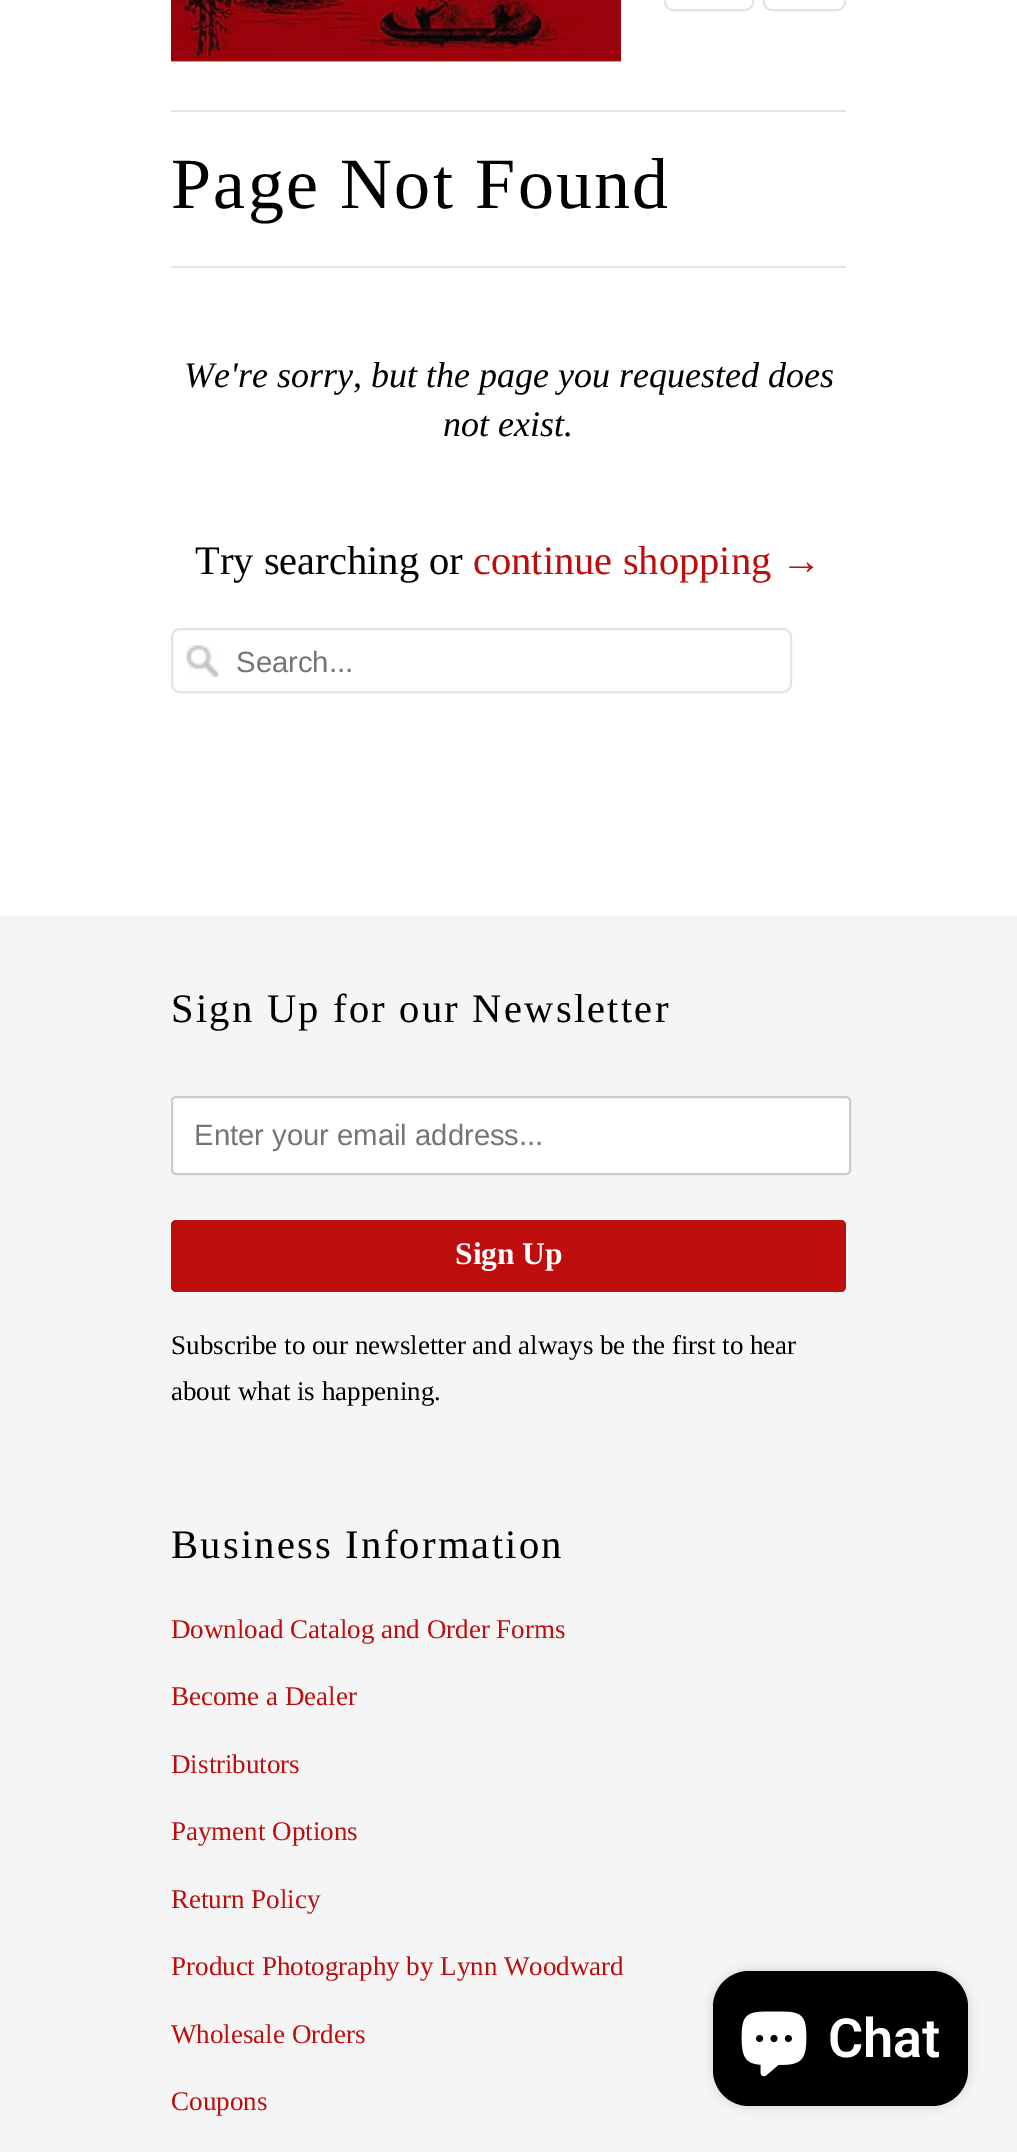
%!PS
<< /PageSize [1017 2152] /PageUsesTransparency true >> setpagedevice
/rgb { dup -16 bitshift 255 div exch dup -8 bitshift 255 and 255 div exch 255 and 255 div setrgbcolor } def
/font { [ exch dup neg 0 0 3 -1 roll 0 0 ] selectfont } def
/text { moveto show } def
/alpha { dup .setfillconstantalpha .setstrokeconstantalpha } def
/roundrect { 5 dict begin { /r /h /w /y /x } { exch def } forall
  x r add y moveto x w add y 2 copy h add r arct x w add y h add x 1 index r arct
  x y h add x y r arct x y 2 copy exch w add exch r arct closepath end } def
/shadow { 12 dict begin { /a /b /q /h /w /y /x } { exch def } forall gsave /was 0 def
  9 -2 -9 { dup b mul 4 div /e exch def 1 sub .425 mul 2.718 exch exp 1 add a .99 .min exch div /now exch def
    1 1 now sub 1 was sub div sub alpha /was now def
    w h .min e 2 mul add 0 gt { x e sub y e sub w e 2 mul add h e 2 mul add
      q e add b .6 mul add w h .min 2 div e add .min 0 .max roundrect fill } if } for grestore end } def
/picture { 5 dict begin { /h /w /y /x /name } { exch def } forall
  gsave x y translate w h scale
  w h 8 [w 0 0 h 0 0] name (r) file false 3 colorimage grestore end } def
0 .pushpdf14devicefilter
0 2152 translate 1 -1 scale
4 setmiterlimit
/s1 { /LiberationSerif-Italic 36 font 16#000000 rgb } def
/s2 { /LiberationSerif-Regular 40.5 font 16#000000 rgb } def
/s3 { /LiberationSerif-Regular 40.5 font 16#BD0D0D rgb } def
/s4 { /LiberationSans-Regular 29.25 font 16#757575 rgb } def
/s5 { /LiberationSerif-Bold 31.5 font 16#FFFFFF rgb } def
/s6 { /LiberationSerif-Regular 27 font 16#000000 rgb } def
/s7 { /LiberationSerif-Regular 27 font 16#BD0D0D rgb } def
/s8 { /Roboto-SemiBold 54 font 16#FFFFFF rgb } def
16#FFFFFF rgb
0 0 1017 2152 rectfill
16#E4E4E4 rgb
171 110 675 2 rectfill
(pic1.raw) 171 0 450 62 picture
2 setlinewidth
665 -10 88 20 8 roundrect stroke
764 -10 81 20 8 roundrect stroke
171 266 675 2 rectfill
/LiberationSerif-Regular 72 font
16#000000 rgb
171 208 moveto 2.25 0 (Page Not Found) ashow
s1
(We're sorry, but the page you requested does) 184 387 text
(not exist.) 443 436 text
s2
(Try searching or) 195 574 text
s3
(continue shopping →) 473 574 text
(pic2.raw) 186 645 33 32 picture
16#E4E4E4 rgb
172 629 619 63 8 roundrect stroke
s4
(Search...) 236 672 text
16#F5F5F5 rgb
0 916 1017 1236 rectfill
/LiberationSerif-Regular 40.5 font
16#000000 rgb
171 1022 moveto 2.25 0 (Sign Up for our Newsletter) ashow
16#FFFFFF rgb
172 1097 678 77 4 roundrect gsave fill grestore
16#CCCCCC rgb
stroke
s4
(Enter your email address...) 194 1145 text
16#BD0D0D rgb
171 1220 675 72 5 roundrect fill
s5
(Sign Up) 455 1264 text
s6
(Subscribe to our newsletter and always be the first to hear) 171 1354 text
(about what is happening.) 171 1400 text
/LiberationSerif-Regular 40.5 font
171 1558 moveto 2.25 0 (Business Information) ashow
s7
(Download Catalog and Order Forms) 171 1638 text
(Become a Dealer) 171 1705 text
(Distributors) 171 1773 text
(Payment Options) 171 1840 text
(Return Policy) 171 1908 text
(Product Photography by Lynn Woodward) 171 1975 text
(Wholesale Orders) 171 2043 text
(Coupons) 171 2110 text
16#000000 rgb
713 1971 255 135 36 5.5 0.15 shadow
713 1971 255 135 36 roundrect fill
(pic3.raw) 741 2011 66 66 picture
s8
(Chat) 828 2057 text
.poppdf14devicefilter showpage
